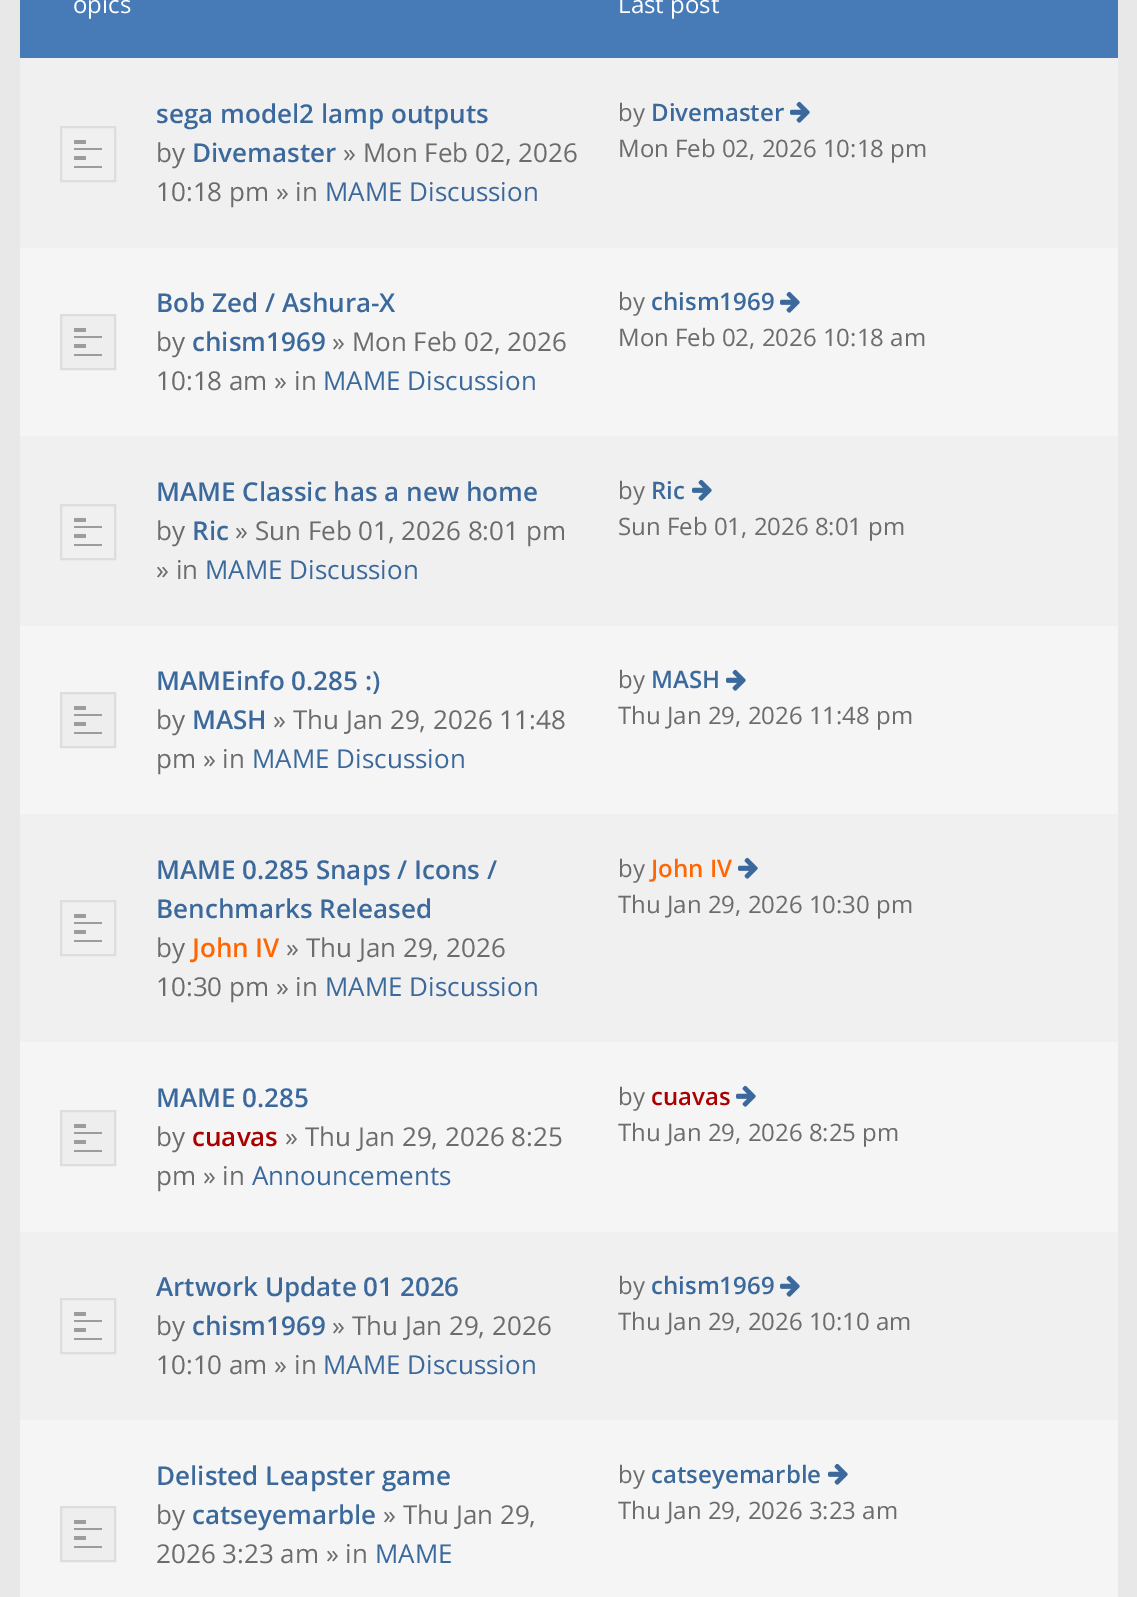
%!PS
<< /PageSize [1137 1597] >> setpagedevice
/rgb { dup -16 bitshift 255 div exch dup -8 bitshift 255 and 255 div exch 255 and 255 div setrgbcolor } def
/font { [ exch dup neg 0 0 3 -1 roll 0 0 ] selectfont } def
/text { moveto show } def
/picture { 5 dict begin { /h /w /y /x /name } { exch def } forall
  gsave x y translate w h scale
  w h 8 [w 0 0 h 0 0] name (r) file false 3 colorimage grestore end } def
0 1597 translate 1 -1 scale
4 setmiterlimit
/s1 { /OpenSans-Regular 24 font 16#FFFFFF rgb } def
/s2 { /OpenSans-SemiBold 26 font 16#3C699C rgb } def
/s3 { /OpenSans-Regular 26 font 16#6C6C6C rgb } def
/s4 { /OpenSans-Regular 26 font 16#3C699C rgb } def
/s5 { /OpenSans-Regular 24 font 16#6C6C6C rgb } def
/s6 { /OpenSans-SemiBold 24 font 16#3C699C rgb } def
/s7 { /OpenSans-SemiBold 26 font 16#FF6600 rgb } def
/s8 { /OpenSans-SemiBold 24 font 16#FF6600 rgb } def
/s9 { /OpenSans-SemiBold 26 font 16#AA0000 rgb } def
/s10 { /OpenSans-SemiBold 24 font 16#AA0000 rgb } def
16#E8E8E8 rgb
0 0 1137 1597 rectfill
16#477BB8 rgb
20 0 1098 58 rectfill
s1
(opics) 73 13 text
(Last post) 618 13 text
16#F0F0F0 rgb
20 58 1098 190 rectfill
16#DDDDDD rgb
2 setlinewidth
61 127 54 54 rectstroke
16#9C9C9C rgb
74 140 12 4 rectfill
74 148 28 2 rectfill
74 166 28 2 rectfill
74 156 12 4 rectfill
s2
(sega model2 lamp outputs) 156 123 text
s3
(by) 156 162 text
s2
(Divemaster) 192 162 text
s3
(» Mon Feb 02, 2026) 343 162 text
(10:18 pm » in) 156 201 text
s4
(MAME Discussion) 325 201 text
s5
(by) 618 121 text
s6
(Divemaster) 651 121 text
(pic1.raw) 790 101 20 22 picture
s5
(Mon Feb 02, 2026 10:18 pm) 618 157 text
16#F5F5F5 rgb
20 248 1098 188 rectfill
16#EEEEEE rgb
61 315 moveto 115 315 lineto 115 369 lineto 61 369 lineto closepath gsave fill grestore
16#DDDDDD rgb
stroke
16#9C9C9C rgb
74 328 12 4 rectfill
74 336 28 2 rectfill
74 354 28 2 rectfill
74 344 12 4 rectfill
s2
(Bob Zed / Ashura-X) 156 312 text
s3
(by) 156 351 text
s2
(chism1969) 192 351 text
s3
(» Mon Feb 02, 2026) 332 351 text
(10:18 am » in) 156 390 text
s4
(MAME Discussion) 323 390 text
s5
(by) 618 310 text
s6
(chism1969) 651 310 text
(pic2.raw) 780 291 20 22 picture
s5
(Mon Feb 02, 2026 10:18 am) 618 346 text
16#F0F0F0 rgb
20 436 1098 190 rectfill
16#DDDDDD rgb
61 505 54 54 rectstroke
16#9C9C9C rgb
74 518 12 4 rectfill
74 526 28 2 rectfill
74 544 28 2 rectfill
74 534 12 4 rectfill
s2
(MAME Classic has a new home) 156 501 text
s3
(by) 156 540 text
s2
(Ric) 192 540 text
s3
(» Sun Feb 01, 2026 8:01 pm) 235 540 text
(» in) 156 579 text
s4
(MAME Discussion) 205 579 text
s5
(by) 618 499 text
s6
(Ric) 651 499 text
(pic1.raw) 692 479 20 22 picture
s5
(Sun Feb 01, 2026 8:01 pm) 618 535 text
16#F5F5F5 rgb
20 626 1098 188 rectfill
16#EEEEEE rgb
61 693 moveto 115 693 lineto 115 747 lineto 61 747 lineto closepath gsave fill grestore
16#DDDDDD rgb
stroke
16#9C9C9C rgb
74 706 12 4 rectfill
74 714 28 2 rectfill
74 732 28 2 rectfill
74 722 12 4 rectfill
s2
(MAMEinfo 0.285 :\)) 156 690 text
s3
(by) 156 729 text
s2
(MASH) 192 729 text
s3
(» Thu Jan 29, 2026 11:48) 273 729 text
(pm » in) 156 768 text
s4
(MAME Discussion) 252 768 text
s5
(by) 618 688 text
s6
(MASH) 651 688 text
(pic2.raw) 726 669 20 22 picture
s5
(Thu Jan 29, 2026 11:48 pm) 618 724 text
16#F0F0F0 rgb
20 814 1098 228 rectfill
16#DDDDDD rgb
61 901 54 54 rectstroke
16#9C9C9C rgb
74 914 12 4 rectfill
74 922 28 2 rectfill
74 940 28 2 rectfill
74 930 12 4 rectfill
s2
(MAME 0.285 Snaps / Icons /) 156 879 text
(Benchmarks Released) 156 918 text
s3
(by) 156 957 text
s7
(John IV) 192 957 text
s3
(» Thu Jan 29, 2026) 286 957 text
(10:30 pm » in) 156 996 text
s4
(MAME Discussion) 325 996 text
s5
(by) 618 877 text
s8
(John IV) 651 877 text
(pic1.raw) 738 857 20 22 picture
s5
(Thu Jan 29, 2026 10:30 pm) 618 913 text
16#F5F5F5 rgb
20 1042 1098 190 rectfill
16#EEEEEE rgb
61 1111 moveto 115 1111 lineto 115 1165 lineto 61 1165 lineto closepath gsave fill grestore
16#DDDDDD rgb
stroke
16#9C9C9C rgb
74 1124 12 4 rectfill
74 1132 28 2 rectfill
74 1150 28 2 rectfill
74 1140 12 4 rectfill
s2
(MAME 0.285) 156 1107 text
s3
(by) 156 1146 text
s9
(cuavas) 192 1146 text
s3
(» Thu Jan 29, 2026 8:25) 285 1146 text
(pm » in) 156 1185 text
s4
(Announcements) 252 1185 text
s5
(by) 618 1105 text
s10
(cuavas) 651 1105 text
(pic2.raw) 736 1085 20 22 picture
s5
(Thu Jan 29, 2026 8:25 pm) 618 1141 text
16#F0F0F0 rgb
20 1232 1098 188 rectfill
16#DDDDDD rgb
61 1299 54 54 rectstroke
16#9C9C9C rgb
74 1312 12 4 rectfill
74 1320 28 2 rectfill
74 1338 28 2 rectfill
74 1328 12 4 rectfill
s2
(Artwork Update 01 2026) 156 1296 text
s3
(by) 156 1335 text
s2
(chism1969) 192 1335 text
s3
(» Thu Jan 29, 2026) 332 1335 text
(10:10 am » in) 156 1374 text
s4
(MAME Discussion) 323 1374 text
s5
(by) 618 1294 text
s6
(chism1969) 651 1294 text
(pic1.raw) 780 1275 20 22 picture
s5
(Thu Jan 29, 2026 10:10 am) 618 1330 text
16#F5F5F5 rgb
20 1420 1098 177 rectfill
16#EEEEEE rgb
61 1507 moveto 115 1507 lineto 115 1561 lineto 61 1561 lineto closepath gsave fill grestore
16#DDDDDD rgb
stroke
16#9C9C9C rgb
74 1520 12 4 rectfill
74 1528 28 2 rectfill
74 1546 28 2 rectfill
74 1536 12 4 rectfill
s2
(Delisted Leapster game) 156 1485 text
s3
(by) 156 1524 text
s2
(catseyemarble) 192 1524 text
s3
(» Thu Jan 29,) 383 1524 text
(2026 3:23 am » in) 156 1563 text
s4
(MAME) 375 1563 text
s5
(by) 618 1483 text
s6
(catseyemarble) 651 1483 text
(pic2.raw) 828 1463 20 22 picture
s5
(Thu Jan 29, 2026 3:23 am) 618 1519 text
showpage
